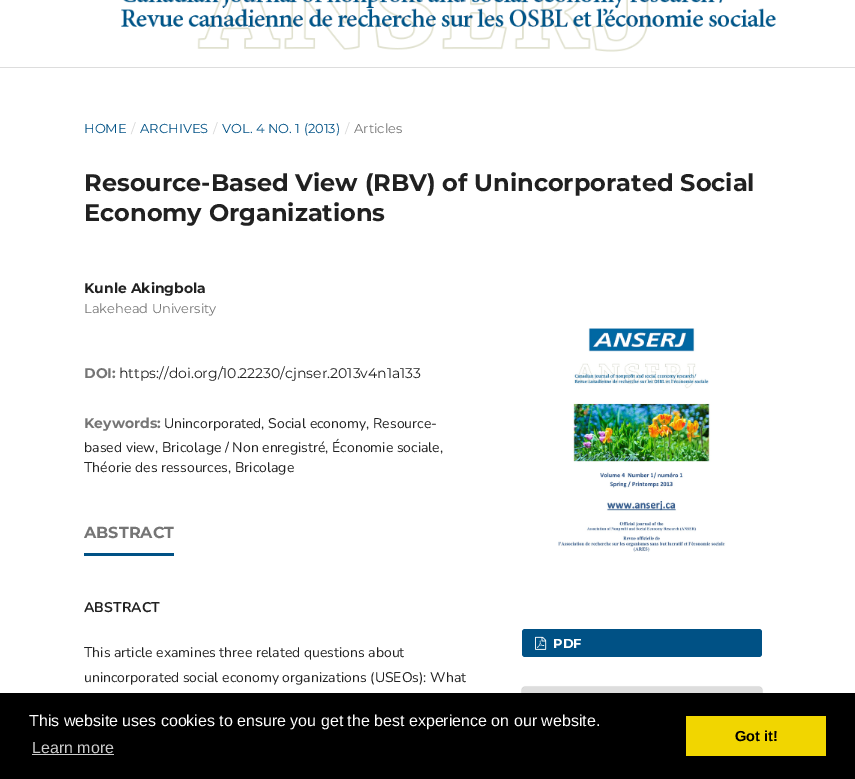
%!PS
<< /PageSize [855 779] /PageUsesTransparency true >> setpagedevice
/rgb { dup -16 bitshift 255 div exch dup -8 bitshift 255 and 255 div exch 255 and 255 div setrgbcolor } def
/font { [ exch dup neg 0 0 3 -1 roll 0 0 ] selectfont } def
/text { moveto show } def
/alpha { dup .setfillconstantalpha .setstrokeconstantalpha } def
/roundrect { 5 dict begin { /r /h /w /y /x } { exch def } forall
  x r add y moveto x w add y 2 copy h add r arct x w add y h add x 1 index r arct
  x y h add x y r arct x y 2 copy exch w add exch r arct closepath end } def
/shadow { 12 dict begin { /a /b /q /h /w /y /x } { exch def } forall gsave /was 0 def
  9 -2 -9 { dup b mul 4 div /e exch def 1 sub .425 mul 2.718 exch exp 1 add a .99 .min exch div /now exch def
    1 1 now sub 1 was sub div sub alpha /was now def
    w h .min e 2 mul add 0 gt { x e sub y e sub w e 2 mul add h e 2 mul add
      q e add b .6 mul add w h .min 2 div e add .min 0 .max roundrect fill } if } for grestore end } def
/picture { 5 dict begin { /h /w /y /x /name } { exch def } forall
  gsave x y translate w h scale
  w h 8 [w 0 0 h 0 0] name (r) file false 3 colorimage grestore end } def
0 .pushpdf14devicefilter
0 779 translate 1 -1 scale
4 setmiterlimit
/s1 { /Montserrat-Regular 13 font 16#005185 rgb } def
/s2 { /Montserrat-Regular 13 font 16#D6D6D6 rgb } def
/s3 { /Montserrat-Regular 13 font 16#757575 rgb } def
/s4 { /Montserrat-Bold 24 font 16#212121 rgb } def
/s5 { /Montserrat-Bold 14 font 16#212121 rgb } def
/s6 { /Montserrat-Bold 14 font 16#757575 rgb } def
/s7 { /Montserrat-Regular 14 font 16#212121 rgb } def
/s8 { /Nunito-Regular 14 font 16#212121 rgb } def
/s9 { /Montserrat-Bold 16 font 16#757575 rgb } def
/s10 { /Nunito-Bold 14 font 16#212121 rgb } def
/s11 { /Montserrat-Bold 13 font 16#FFFFFF rgb } def
/s12 { /LiberationSans-Regular 16 font 16#FFFFFF rgb } def
/s13 { /LiberationSans-Regular 16 font 16#CCCCCC rgb } def
/s14 { /LiberationSans-Bold 14.5 font 16#000000 rgb } def
16#FFFFFF rgb
0 0 855 779 rectfill
16#DDDDDD rgb
0 67 855 1 rectfill
(pic1.raw) 121 0 655 52 picture
s1
(HOME) 84 133 text
s2
(/) 131 133 text
s1
(ARCHIVES) 140 133 text
s2
(/) 213 133 text
s1
(VOL. 4 NO. 1 \(2013\)) 222 133 text
s2
(/) 345 133 text
s3
(Articles) 354 133 text
s4
(Resource-Based View \(RBV\) of Unincorporated Social) 84 191 text
(Economy Organizations) 84 221 text
s5
(Kunle Akingbola) 84 293 text
s3
(Lakehead University) 84 313 text
s6
(DOI:) 84 378 text
s7
(https://doi.org/10.22230/cjnser.2013v4n1a133) 119 378 text
s6
(Keywords:) 84 428 text
s8
(Unincorporated, Social economy, Resource-) 164 428 text
(based view, Bricolage / Non enregistré, Économie sociale,) 84 452 text
(Théorie des ressources, Bricolage) 84 472 text
16#005185 rgb
84 553 90 3 rectfill
s9
(ABSTRACT) 84 538 text
s10
(ABSTRACT) 84 612 text
s8
(This article examines three related questions about) 84 657 text
(unincorporated social economy organizations \(USEOs\): What) 84 682 text
(pic2.raw) 558 328 168 224 picture
16#005185 rgb
522 629 240 28 3 roundrect fill
(pic3.raw) 535 636 12 14 picture
s11
(PDF) 553 648 text
16#000000 rgb
522 687 240 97 3 0.5 0.4 shadow
16#DDDDDD rgb
525 687 moveto 759 687 lineto 760.5 687 762 688.5 762 690 curveto 762 730 lineto 522 730 lineto 522 690 lineto 522 688.5 523.5 687 525 687 curveto closepath fill
16#000000 rgb
0 693 855 86 rectfill
s12
(This website uses cookies to ensure you get the best experience on our website.) 29 726 text
s13
(Learn more) 32 753 text
32 754 82 1 rectfill
16#F1D600 rgb
686 716 140 40 rectfill
s14
(Got it!) 735 741 text
.poppdf14devicefilter showpage
